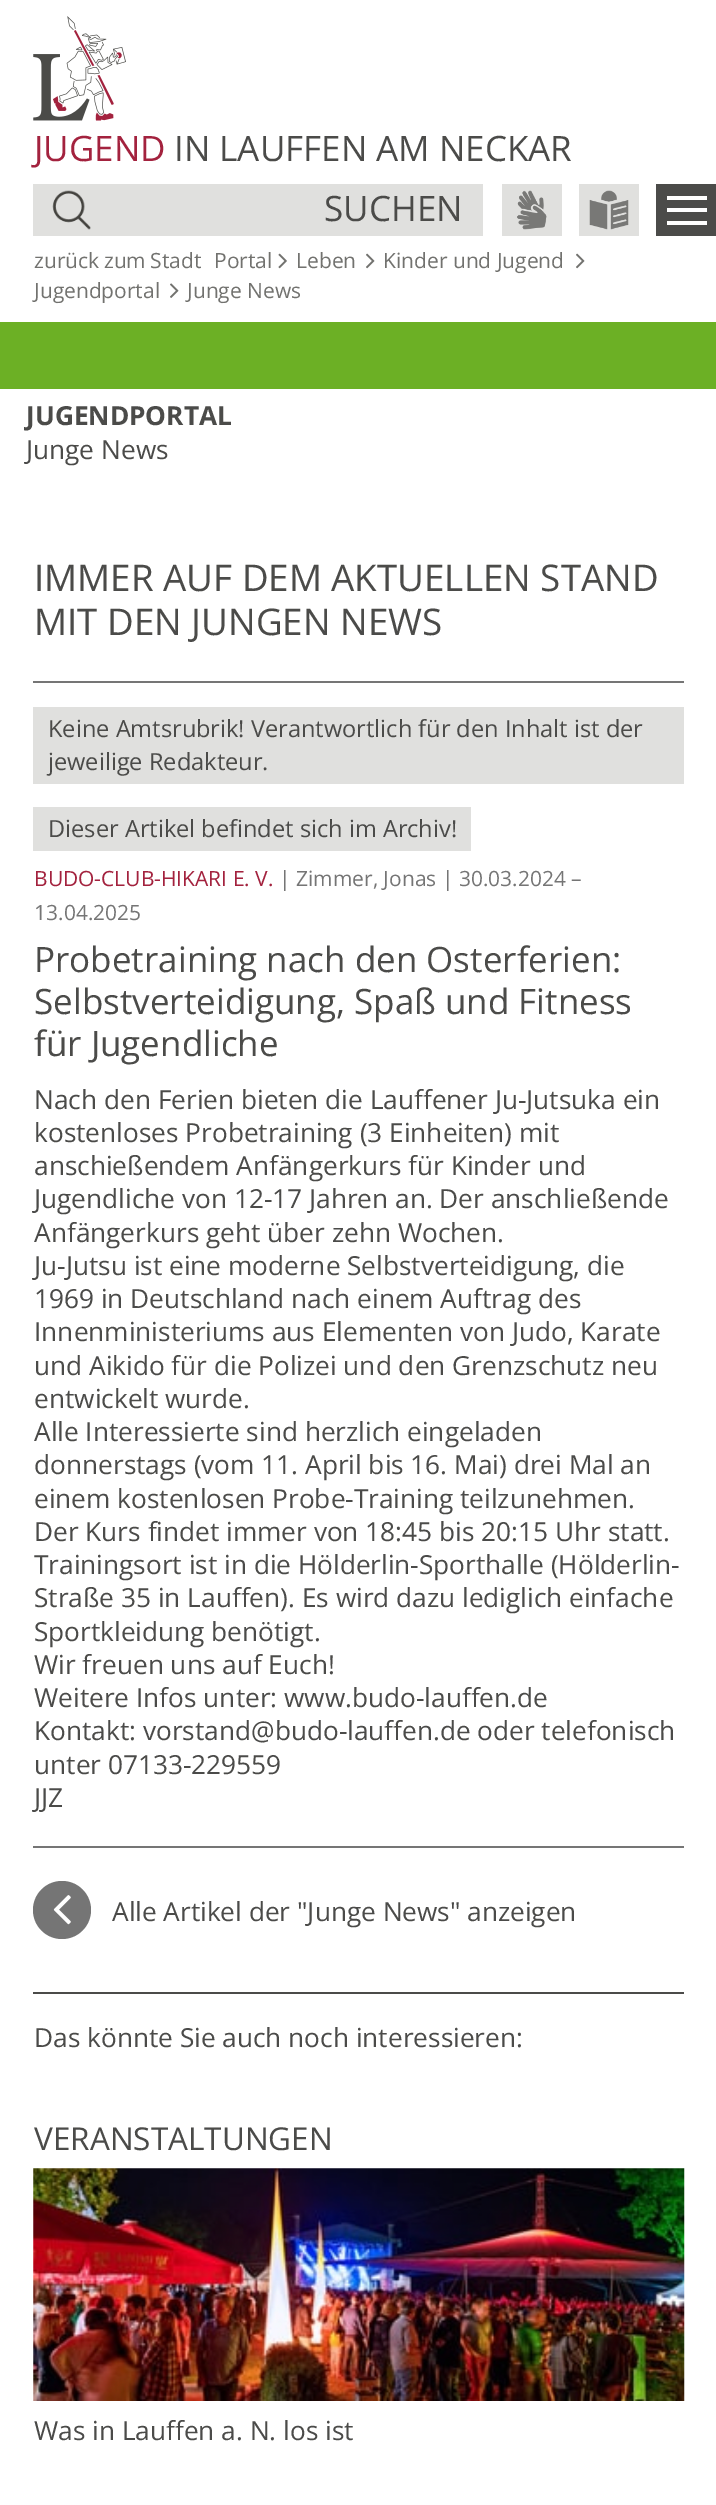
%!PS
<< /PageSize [716 2505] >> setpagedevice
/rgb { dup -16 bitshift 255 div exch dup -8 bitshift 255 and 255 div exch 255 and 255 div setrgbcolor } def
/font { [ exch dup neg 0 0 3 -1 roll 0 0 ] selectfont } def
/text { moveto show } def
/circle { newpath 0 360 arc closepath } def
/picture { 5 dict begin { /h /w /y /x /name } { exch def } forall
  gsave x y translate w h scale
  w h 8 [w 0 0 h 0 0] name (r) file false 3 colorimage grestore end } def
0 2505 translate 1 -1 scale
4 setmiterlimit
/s1 { /OpenSans-Regular 35 font 16#A3223E rgb } def
/s2 { /OpenSans-Regular 35 font 16#4B4B49 rgb } def
/s3 { /OpenSans-Regular 21 font 16#72726F rgb } def
/s4 { /OpenSans-Bold 26.25 font 16#4B4B49 rgb } def
/s5 { /OpenSans-Regular 26.25 font 16#4B4B49 rgb } def
/s6 { /OpenSans-Regular 36.75 font 16#4B4B49 rgb } def
/s7 { /OpenSans-Regular 23.6 font 16#4B4B49 rgb } def
/s8 { /OpenSans-Regular 21 font 16#A3223E rgb } def
/s9 { /OpenSans-Regular 21 font 16#757575 rgb } def
/s10 { /OpenSans-Regular 31.5 font 16#4B4B49 rgb } def
16#FFFFFF rgb
0 0 716 2505 rectfill
(pic1.raw) 33 16 93 105 picture
s1
(JUGEND) 34 161 text
s2
(IN LAUFFEN AM NECKAR) 174 161 text
16#E0E0DE rgb
33 184 450 52 rectfill
(pic2.raw) 52 190 39 40 picture
s2
(SUCHEN) 324 221 text
16#E0E0DE rgb
502 184 60 52 rectfill
(pic3.raw) 517 190 30 40 picture
579 184 60 52 rectfill
(pic4.raw) 589 190 40 40 picture
16#4B4B49 rgb
656 184 60 52 rectfill
16#FFFFFF rgb
667 196 40 4 rectfill
667 208 40 4 rectfill
667 221 40 4 rectfill
/OpenSans-Regular 21 font
16#72726F rgb
34 268 moveto -1 0 32 (zurück zum Stadt‑Portal) widthshow
(pic5.raw) 278 253 9 16 picture
(Leben) 296 268 text
(pic6.raw) 366 253 9 16 picture
(Kinder und Jugend) 383 268 text
(pic6.raw) 576 253 9 16 picture
(Jugendportal) 34 298 text
(pic7.raw) 170 283 9 15 picture
(Junge News) 187 298 text
16#6CB025 rgb
0 322 716 67 rectfill
s4
(JUGENDPORTAL) 26 425 text
s5
(Junge News) 26 459 text
s6
(IMMER AUF DEM AKTUELLEN STAND) 34 591 text
(MIT DEN JUNGEN NEWS) 34 635 text
16#757575 rgb
33 681 651 2 rectfill
16#E0E0DE rgb
33 707 651 77 rectfill
s7
(Keine Amtsrubrik! Verantwortlich für den Inhalt ist der) 48 737 text
(jeweilige Redakteur.) 48 770 text
16#E0E0DE rgb
33 807 438 44 rectfill
s7
(Dieser Artikel befindet sich im Archiv!) 48 837 text
s8
(BUDO-CLUB-HIKARI E. V.) 34 886 text
s9
(| Zimmer, Jonas | 30.03.2024 –) 279 886 text
(13.04.2025) 34 920 text
s2
(Probetraining nach den Osterferien:) 34 972 text
(Selbstverteidigung, Spaß und Fitness) 34 1014 text
(für Jugendliche) 34 1056 text
s5
(Nach den Ferien bieten die Lauffener Ju-Jutsuka ein) 34 1109 text
(kostenloses Probetraining \(3 Einheiten\) mit) 34 1142 text
(anschießendem Anfängerkurs für Kinder und) 34 1175 text
(Jugendliche von 12-17 Jahren an. Der anschließende) 34 1208 text
(Anfängerkurs geht über zehn Wochen.) 34 1242 text
(Ju-Jutsu ist eine moderne Selbstverteidigung, die) 34 1275 text
(1969 in Deutschland nach einem Auftrag des) 34 1308 text
(Innenministeriums aus Elementen von Judo, Karate) 34 1341 text
(und Aikido für die Polizei und den Grenzschutz neu) 34 1375 text
(entwickelt wurde.) 34 1408 text
(Alle Interessierte sind herzlich eingeladen) 34 1441 text
(donnerstags \(vom 11. April bis 16. Mai\) drei Mal an) 34 1474 text
(einem kostenlosen Probe-Training teilzunehmen.) 34 1508 text
(Der Kurs findet immer von 18:45 bis 20:15 Uhr statt.) 34 1541 text
(Trainingsort ist in die Hölderlin-Sporthalle \(Hölderlin-) 34 1574 text
(Straße 35 in Lauffen\). Es wird dazu lediglich einfache) 34 1607 text
(Sportkleidung benötigt.) 34 1641 text
(Wir freuen uns auf Euch!) 34 1674 text
(Weitere Infos unter: www.budo-lauffen.de) 34 1707 text
(Kontakt: vorstand@budo-lauffen.de oder telefonisch) 34 1740 text
(unter 07133-229559) 34 1774 text
(JJZ) 34 1807 text
16#757575 rgb
33 1846 651 2 rectfill
62 1910 29 circle fill
(pic8.raw) 53 1895 18 30 picture
s5
(Alle Artikel der "Junge News" anzeigen) 112 1921 text
33 1992 651 2 rectfill
(Das könnte Sie auch noch interessieren:) 34 2047 text
s10
(VERANSTALTUNGEN) 34 2150 text
(pic9.raw) 33 2168 652 233 picture
s5
(Was in Lauffen a. N. los ist) 34 2440 text
showpage
